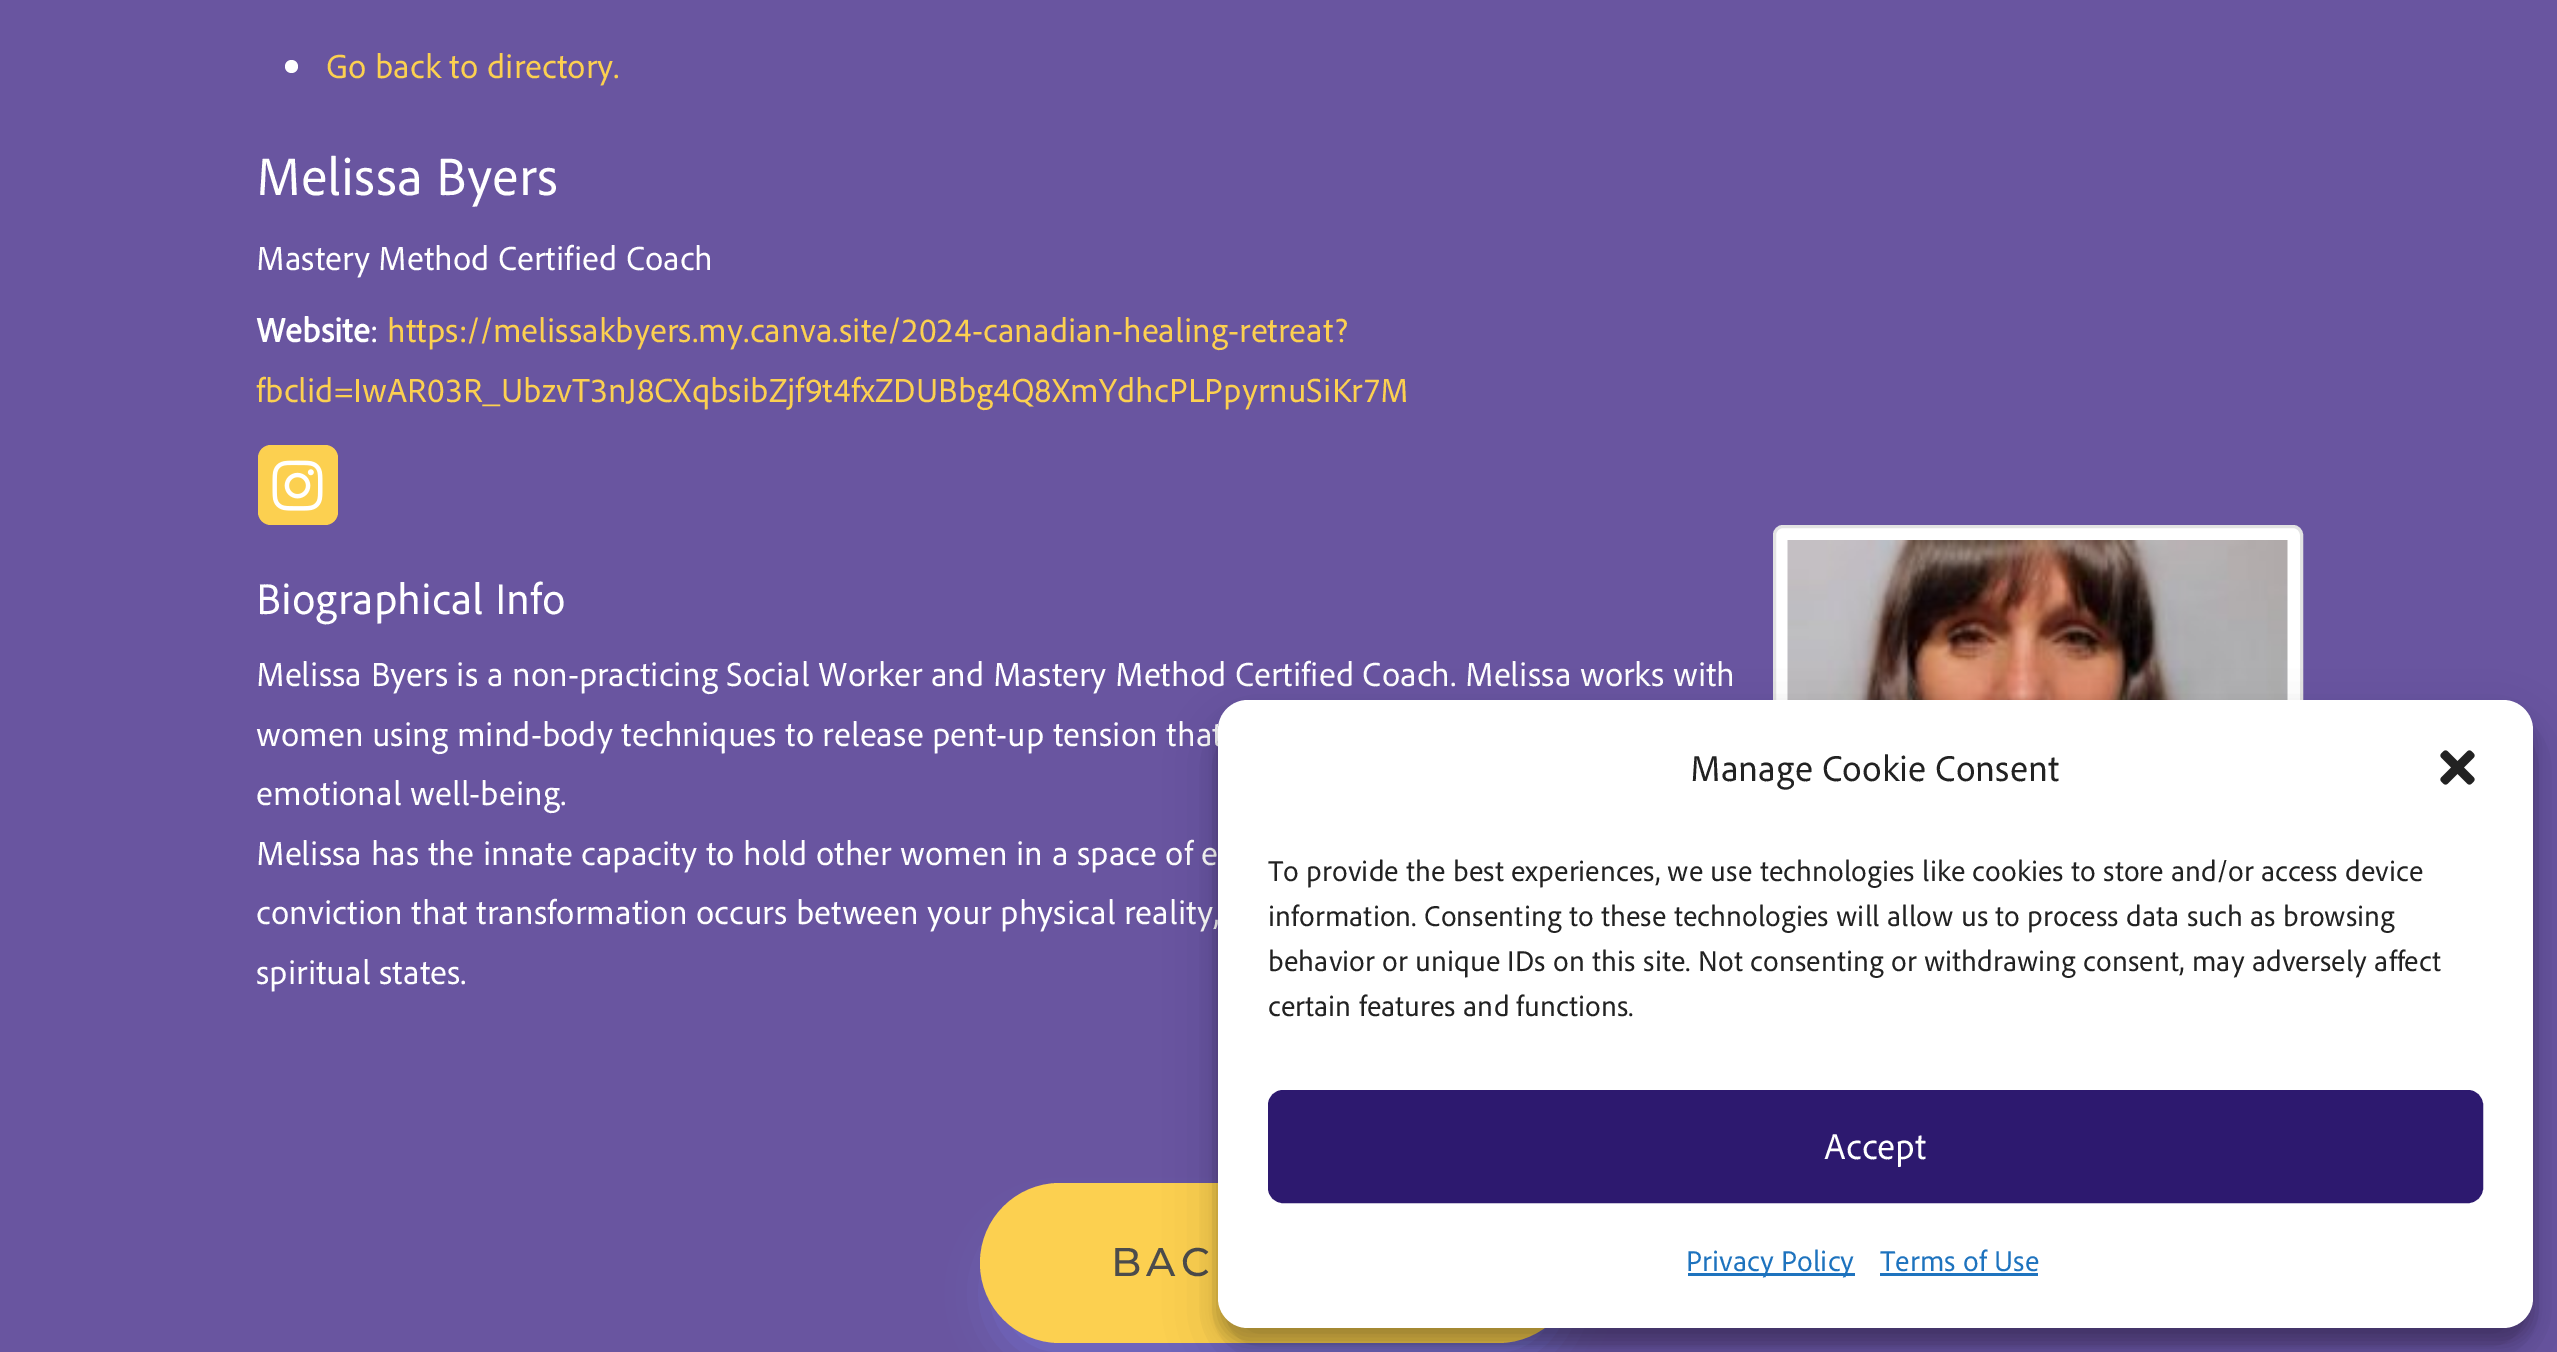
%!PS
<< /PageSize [2557 1352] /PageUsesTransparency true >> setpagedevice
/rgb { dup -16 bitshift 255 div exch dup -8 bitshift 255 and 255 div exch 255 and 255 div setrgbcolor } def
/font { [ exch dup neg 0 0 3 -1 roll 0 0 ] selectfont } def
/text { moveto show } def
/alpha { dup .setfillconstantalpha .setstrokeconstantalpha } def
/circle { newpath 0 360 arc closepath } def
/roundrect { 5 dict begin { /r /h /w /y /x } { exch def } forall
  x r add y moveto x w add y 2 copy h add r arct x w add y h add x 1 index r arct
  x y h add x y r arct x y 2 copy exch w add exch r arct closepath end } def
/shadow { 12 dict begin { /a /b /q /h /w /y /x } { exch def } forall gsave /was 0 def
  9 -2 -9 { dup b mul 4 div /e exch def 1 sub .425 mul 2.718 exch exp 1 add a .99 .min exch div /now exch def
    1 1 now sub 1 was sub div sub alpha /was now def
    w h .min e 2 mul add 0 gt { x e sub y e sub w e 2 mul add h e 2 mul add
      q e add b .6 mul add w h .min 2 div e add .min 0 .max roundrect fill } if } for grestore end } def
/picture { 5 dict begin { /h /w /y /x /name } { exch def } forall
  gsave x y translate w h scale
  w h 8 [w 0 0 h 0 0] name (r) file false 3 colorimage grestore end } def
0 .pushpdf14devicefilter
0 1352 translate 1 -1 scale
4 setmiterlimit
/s1 { /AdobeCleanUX-Regular 35 font 16#FCD050 rgb } def
/s2 { /AdobeCleanUX-Regular 55 font 16#FFFFFF rgb } def
/s3 { /AdobeCleanUX-Regular 35 font 16#FFFFFF rgb } def
/s4 { /AdobeCleanUX-Bold 35 font 16#FFFFFF rgb } def
/s5 { /AdobeCleanUX-Regular 45 font 16#FFFFFF rgb } def
/s6 { /AdobeCleanUX-Regular 37.5 font 16#222222 rgb } def
/s7 { /AdobeCleanUX-Regular 30 font 16#222222 rgb } def
/s8 { /AdobeCleanUX-Regular 37.5 font 16#FFFFFF rgb } def
/s9 { /AdobeCleanUX-Regular 30 font 16#1E73BE rgb } def
16#6955A0 rgb
0 0 2557 1352 rectfill
16#FFFFFF rgb
291.5 66.5 6.5 circle fill
s1
(Go back to directory.) 326 78 text
s2
(Melissa Byers) 256 195 text
s3
(Mastery Method Certified Coach) 256 270 text
s4
(Website) 256 342 text
s3
(:) 370 342 text
s1
(https://melissakbyers.my.canva.site/2024-canadian-healing-retreat?) 387 342 text
(fbclid=IwAR03R_UbzvT3nJ8CXqbsibZjf9t4fxZDUBbg4Q8XmYdhcPLPpyrnuSiKr7M) 256 402 text
258 445 80 80 13 roundrect fill
(pic1.raw) 272 460 51 51 picture
s5
(Biographical Info) 256 614 text
s3
(Melissa Byers is a non-practicing Social Worker and Mastery Method Certified Coach. Melissa works with) 256 686 text
(women using mind-body techniques to release pent-up tension that) 256 746 text
(emotional well-being.) 256 805 text
(Melissa has the innate capacity to hold other women in a space of e) 256 865 text
(conviction that transformation occurs between your physical reality,) 256 924 text
(spiritual states.) 256 984 text
1774.5 526.5 527 527 8.5 roundrect gsave fill grestore
16#E3E3E3 rgb
3 setlinewidth
stroke
(pic2.raw) 1787 540 501 160 picture
16#7F8DFF rgb
995 1228 568 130 65 22.5 0.4 shadow
16#FCD050 rgb
980 1183 598 160 80 roundrect fill
/Montserrat-Medium 40 font
16#4C4C4C rgb
1111 1276 moveto 5 0 (BAC) ashow
16#000000 rgb
1218 715 1315 628 30 7.5 0.23 shadow
1218 725 1315 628 30 25 0.19 shadow
16#FFFFFF rgb
1218 700 1315 628 30 roundrect fill
s6
(Manage Cookie Consent) 1690 781 text
(pic3.raw) 2440 750 35 35 picture
s7
(To provide the best experiences, we use technologies like cookies to store and/or access device) 1268 881 text
(information. Consenting to these technologies will allow us to process data such as browsing) 1268 926 text
(behavior or unique IDs on this site. Not consenting or withdrawing consent, may adversely affect) 1268 971 text
(certain features and functions.) 1268 1016 text
16#2D196F rgb
1269.5 1091.5 1212 110 13.5 roundrect gsave fill grestore
stroke
s8
(Accept) 1824 1159 text
16#1E73BE rgb
1688 1273 167 3 rectfill
s9
(Privacy Policy) 1686 1271 text
(Terms of Use) 1880 1271 text
1880 1273 158 3 rectfill
.poppdf14devicefilter showpage
